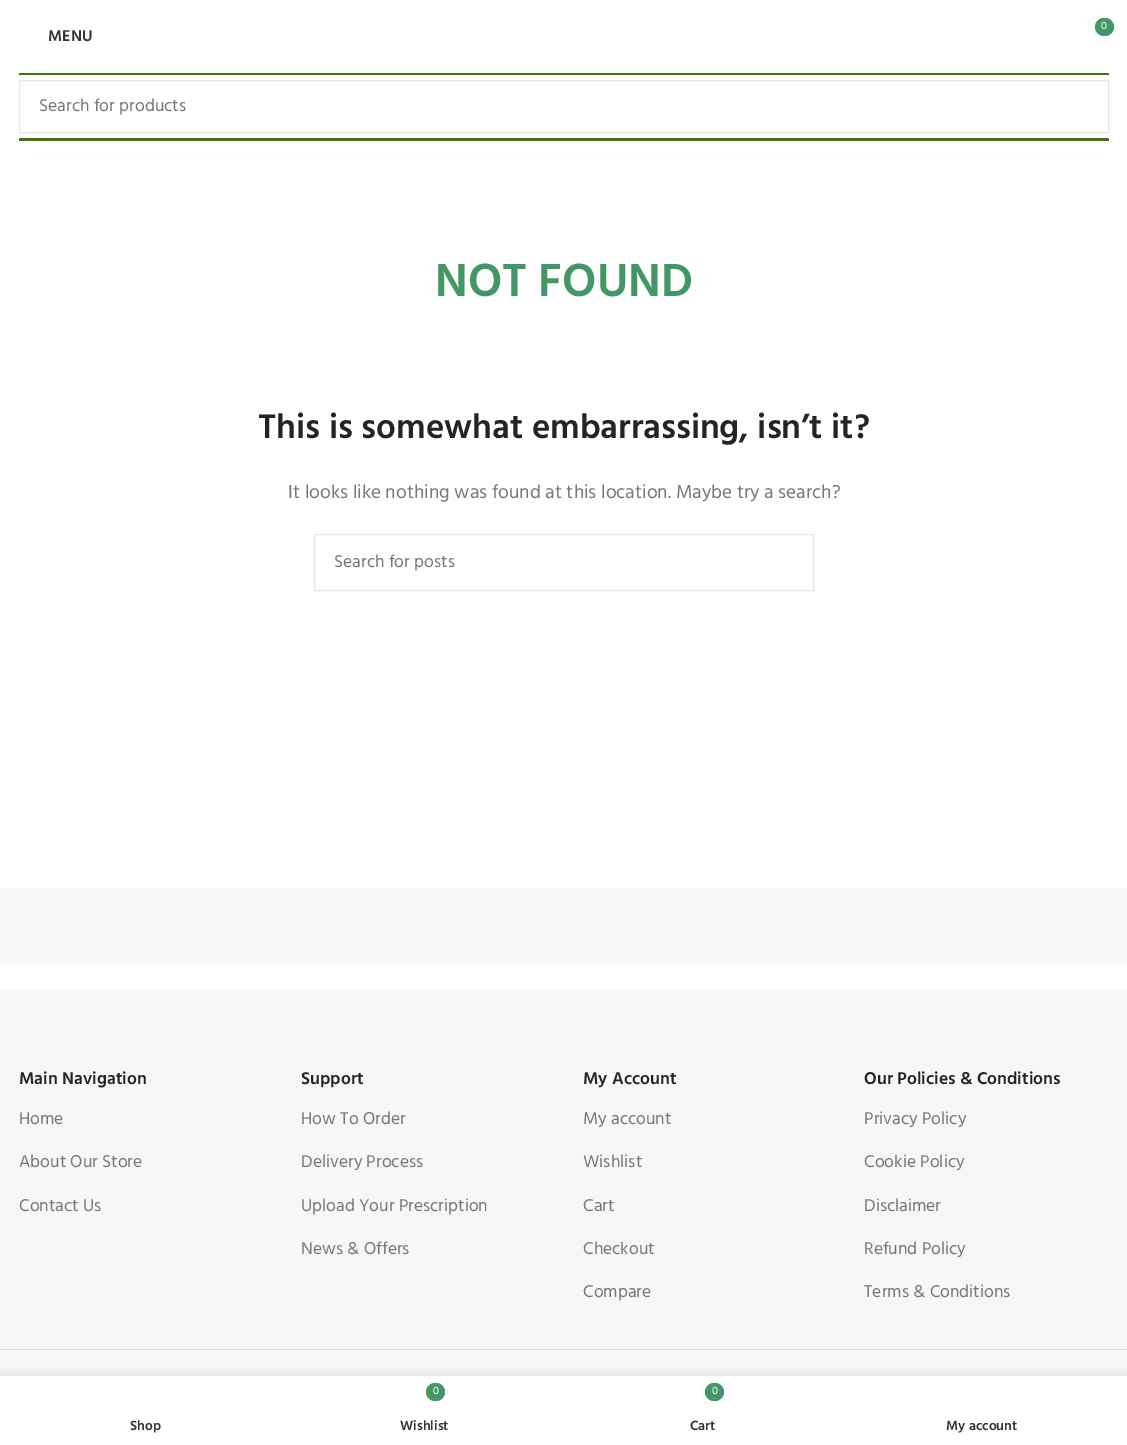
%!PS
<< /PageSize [1127 1445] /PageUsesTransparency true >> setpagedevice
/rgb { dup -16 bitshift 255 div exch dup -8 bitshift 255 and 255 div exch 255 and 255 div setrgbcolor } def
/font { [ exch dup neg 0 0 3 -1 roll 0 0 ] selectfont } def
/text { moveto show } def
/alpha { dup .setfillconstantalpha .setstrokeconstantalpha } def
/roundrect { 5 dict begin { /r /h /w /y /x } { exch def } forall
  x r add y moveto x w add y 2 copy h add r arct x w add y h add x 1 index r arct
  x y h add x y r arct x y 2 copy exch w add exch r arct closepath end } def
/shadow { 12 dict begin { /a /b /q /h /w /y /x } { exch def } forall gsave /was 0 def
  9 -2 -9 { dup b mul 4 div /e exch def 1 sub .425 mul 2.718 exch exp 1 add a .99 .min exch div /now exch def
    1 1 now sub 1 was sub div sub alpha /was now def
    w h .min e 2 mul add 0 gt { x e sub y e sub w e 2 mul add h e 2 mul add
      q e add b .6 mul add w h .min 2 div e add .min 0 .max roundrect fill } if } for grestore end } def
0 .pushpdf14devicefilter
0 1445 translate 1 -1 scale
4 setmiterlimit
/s1 { /Hind-Regular 11 font 16#FFFFFF rgb } def
/s2 { /Hind-SemiBold 16 font 16#333333 rgb } def
/s3 { /Hind-Regular 17.5 font 16#777777 rgb } def
/s4 { /Hind-SemiBold 47.5 font 16#439665 rgb } def
/s5 { /Hind-SemiBold 35 font 16#242424 rgb } def
/s6 { /Hind-Regular 19.25 font 16#777777 rgb } def
/s7 { /Hind-SemiBold 17.5 font 16#242424 rgb } def
/s8 { /Hind-SemiBold 13.75 font 16#333333 rgb } def
16#FFFFFF rgb
0 0 1127 1445 rectfill
16#417505 rgb
19 73 1090 2 rectfill
16#439665 rgb
1095 18 19 18 9 roundrect fill
s1
(0) 1101 29 text
s2
(MENU) 48 41 text
16#417505 rgb
19 138 1090 3 rectfill
16#E6E6E6 rgb
19.5 80.5 1089 52 rectstroke
s3
(Search for products) 39 111 text
s4
(NOT FOUND) 435 296 text
s5
(This is somewhat embarrassing, isn’t it?) 258 438 text
s6
(It looks like nothing was found at this location. Maybe try a search?) 288 498 text
16#E6E6E6 rgb
314.5 534.5 499 56 rectstroke
s3
(Search for posts) 334 567 text
16#F9F9F9 rgb
0 888 1127 77 rectfill
16#F7F7F7 rgb
0 990 1127 386 rectfill
s7
(Main Navigation) 19 1084 text
s3
(Home) 19 1124 text
(About Our Store) 19 1167 text
(Contact Us) 19 1211 text
s7
(Support) 301 1084 text
s3
(How To Order) 301 1124 text
(Delivery Process) 301 1167 text
(Upload Your Prescription) 301 1211 text
(News & Offers) 301 1254 text
s7
(My Account) 583 1084 text
s3
(My account) 583 1124 text
(Wishlist) 583 1167 text
(Cart) 583 1211 text
(Checkout) 583 1254 text
(Compare) 583 1297 text
s7
(Our Policies & Conditions) 864 1084 text
s3
(Privacy Policy) 864 1124 text
(Cookie Policy) 864 1167 text
(Disclaimer) 864 1211 text
(Refund Policy) 864 1254 text
(Terms & Conditions) 864 1297 text
16#DFDFDF rgb
0 1349 1127 1 rectfill
16#000000 rgb
0 1376 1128 69 0 5.5 0.12 shadow
16#FFFFFF rgb
0 1376 1127 69 rectfill
s8
(Shop) 130 1430 text
16#439665 rgb
426 1383 19 18 9 roundrect fill
s1
(0) 433 1394 text
s8
(Wishlist) 400 1430 text
16#439665 rgb
705 1383 19 18 9 roundrect fill
s1
(0) 712 1394 text
s8
(Cart) 690 1430 text
(My account) 946 1430 text
.poppdf14devicefilter showpage
